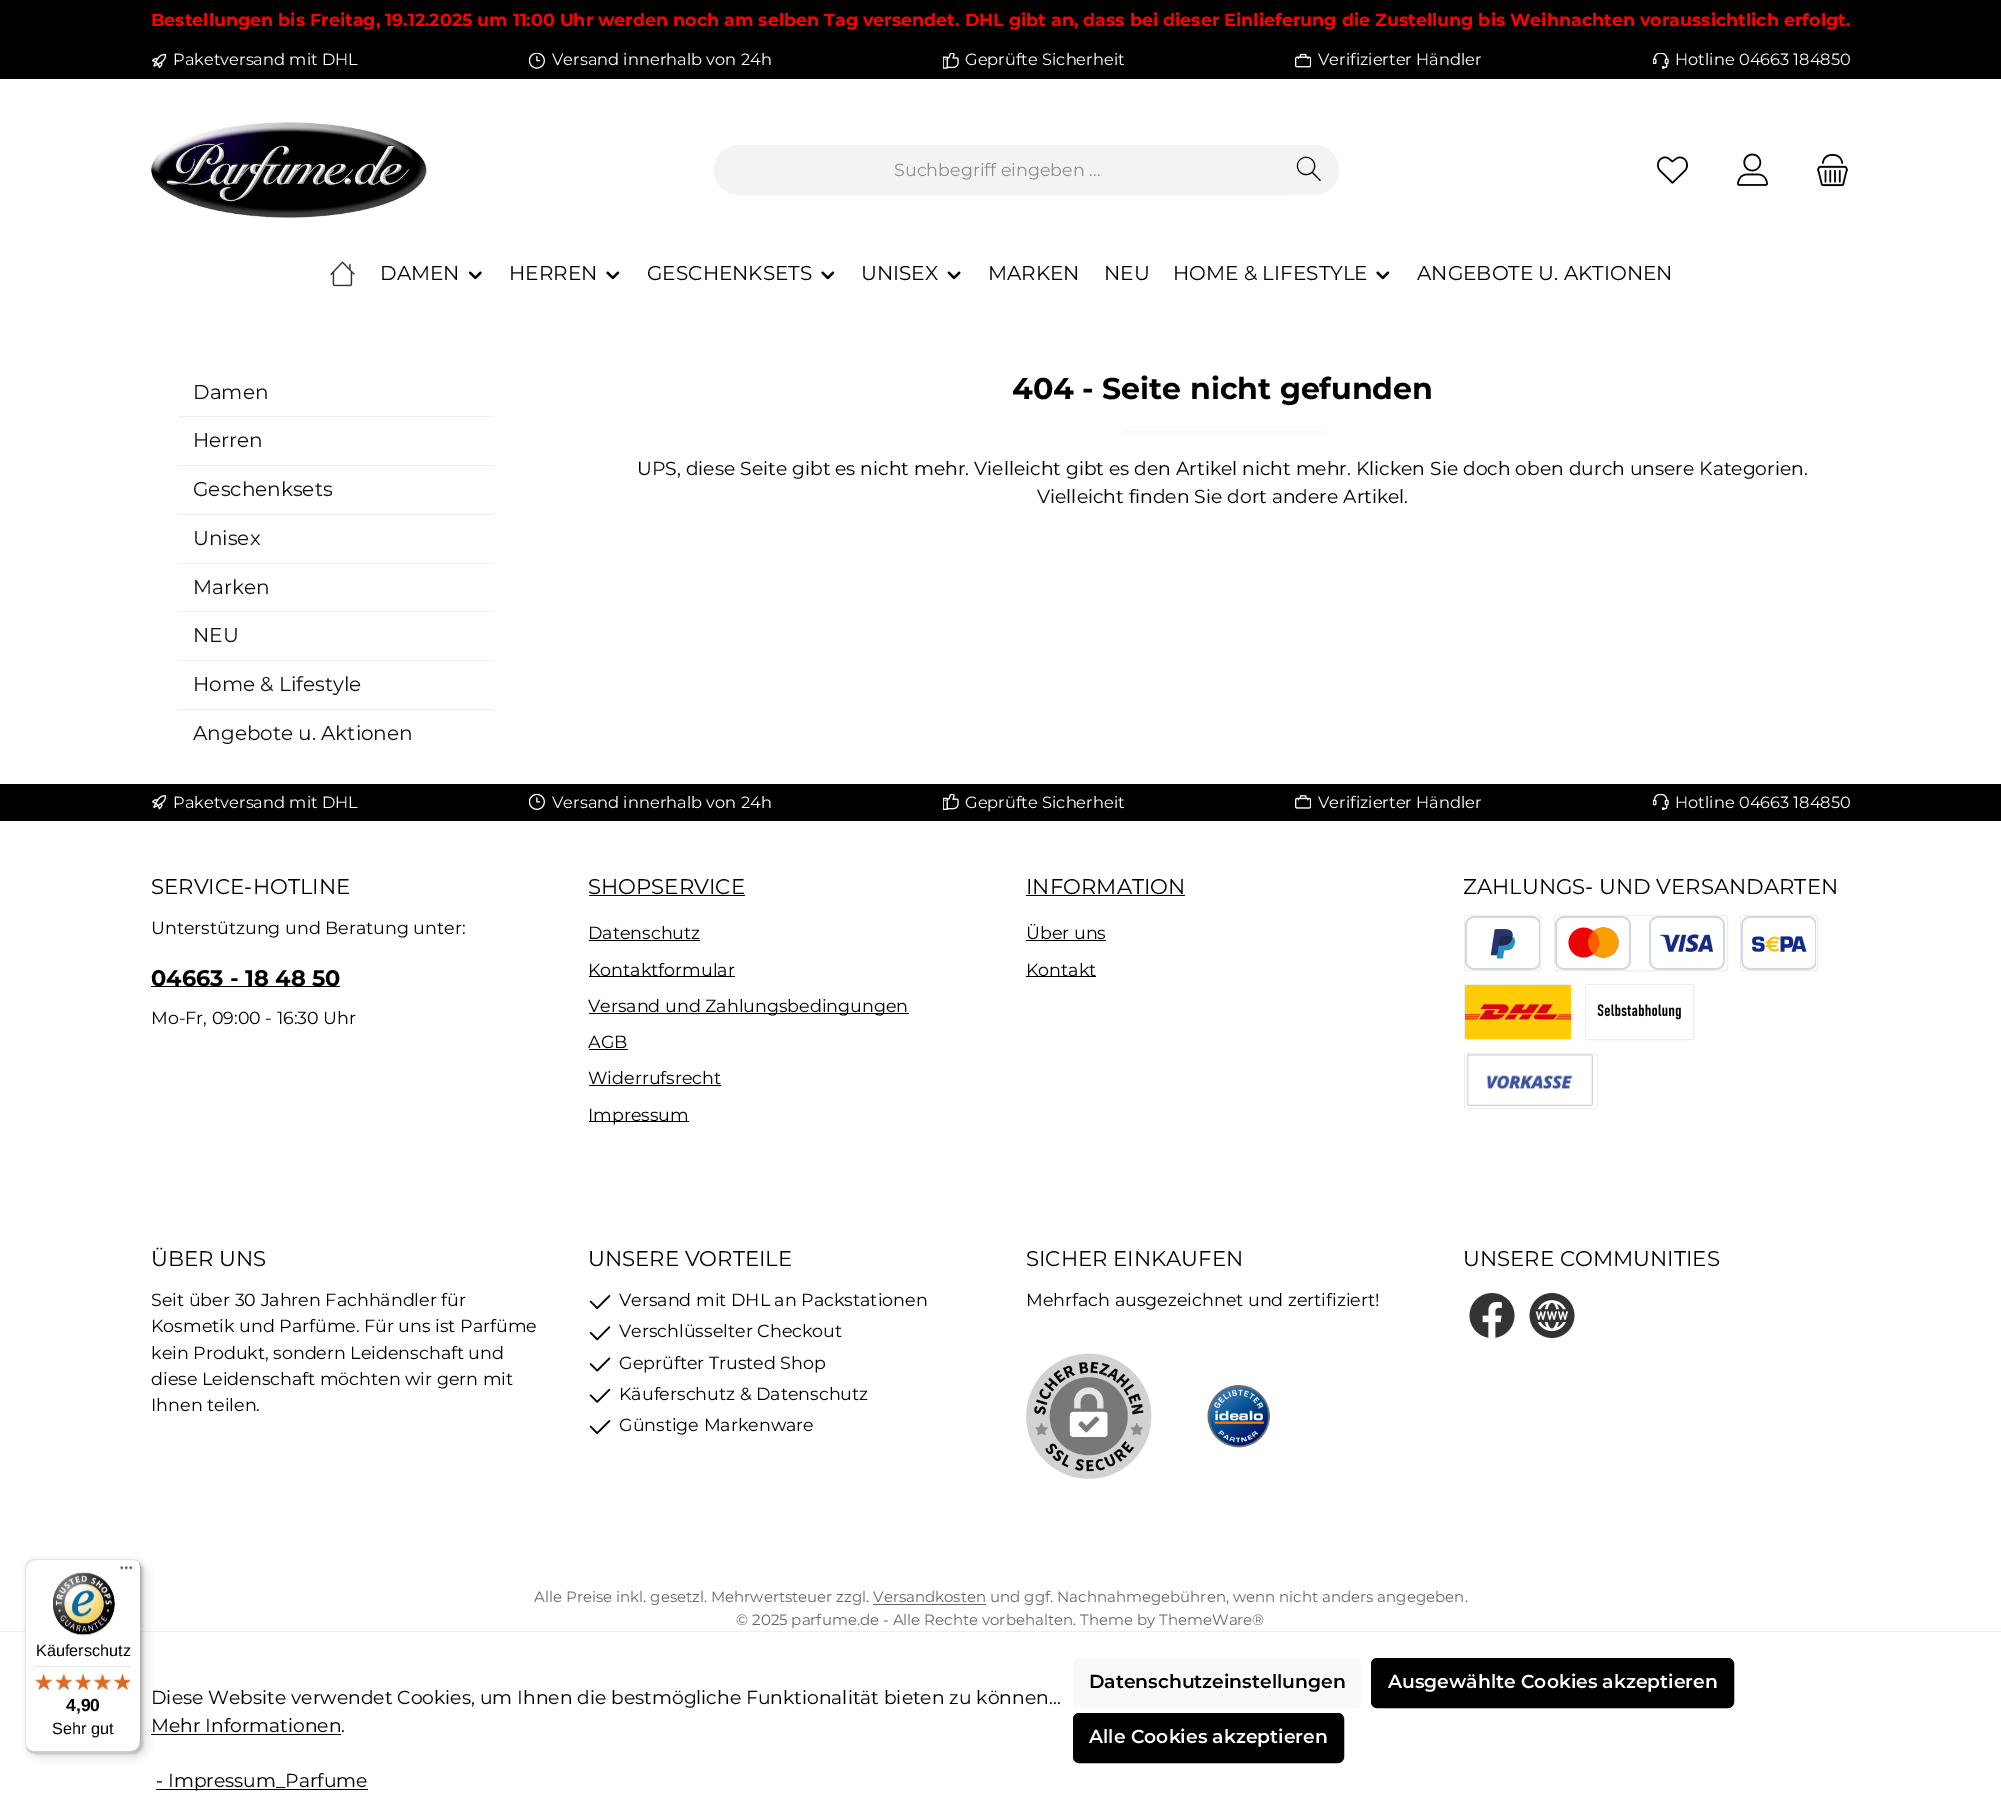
%!PS
<< /PageSize [2001 1820] /PageUsesTransparency true >> setpagedevice
/rgb { dup -16 bitshift 255 div exch dup -8 bitshift 255 and 255 div exch 255 and 255 div setrgbcolor } def
/font { [ exch dup neg 0 0 3 -1 roll 0 0 ] selectfont } def
/text { moveto show } def
/alpha { dup .setfillconstantalpha .setstrokeconstantalpha } def
/roundrect { 5 dict begin { /r /h /w /y /x } { exch def } forall
  x r add y moveto x w add y 2 copy h add r arct x w add y h add x 1 index r arct
  x y h add x y r arct x y 2 copy exch w add exch r arct closepath end } def
/shadow { 12 dict begin { /a /b /q /h /w /y /x } { exch def } forall gsave /was 0 def
  9 -2 -9 { dup b mul 4 div /e exch def 1 sub .425 mul 2.718 exch exp 1 add a .99 .min exch div /now exch def
    1 1 now sub 1 was sub div sub alpha /was now def
    w h .min e 2 mul add 0 gt { x e sub y e sub w e 2 mul add h e 2 mul add
      q e add b .6 mul add w h .min 2 div e add .min 0 .max roundrect fill } if } for grestore end } def
/picture { 5 dict begin { /h /w /y /x /name } { exch def } forall
  gsave x y translate w h scale
  w h 8 [w 0 0 h 0 0] name (r) file false 3 colorimage grestore end } def
0 .pushpdf14devicefilter
0 1820 translate 1 -1 scale
4 setmiterlimit
/s1 { /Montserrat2-Thin 17.5 font 16#FF0000 rgb } def
/s2 { /Montserrat-Thin 16.25 font 16#FFFFFF rgb } def
/s3 { /Montserrat-Thin 17.5 font 16#8E8E8E rgb } def
/s4 { /Montserrat-Thin 20 font 16#000000 rgb } def
/s5 { /Montserrat-Thin 20 font 16#111111 rgb } def
/s6 { /Montserrat2-Thin 30 font 16#000000 rgb } def
/s7 { /Montserrat-Thin 18.75 font 16#000000 rgb } def
/s8 { /Montserrat-Thin 21.25 font 16#000000 rgb } def
/s9 { /Montserrat-Thin 17.5 font 16#000000 rgb } def
/s10 { /Montserrat2-Thin 22.5 font 16#000000 rgb } def
/s11 { /Montserrat-Thin 15 font 16#666666 rgb } def
/s12 { /LiberationSans-Regular 16.25 font 16#000000 rgb } def
/s13 { /LiberationSans-Bold 17.5 font 16#000000 rgb } def
/s14 { /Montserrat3-Thin 18.75 font 16#000000 rgb } def
/s15 { /Montserrat3-Thin 18.75 font 16#FFFFFF rgb } def
16#FFFFFF rgb
0 0 2001 1820 rectfill
16#000000 rgb
0 0 2001 79 rectfill
s1
(Bestellungen bis Freitag, 19.12.2025 um 11:00 Uhr werden noch am selben Tag versendet. DHL gibt an, dass bei dieser Einlieferung die Zustellung bis Weihnachten voraussichtlich erfolgt.) 151 26 text
(pic1.raw) 151 53 16 16 picture
s2
(Paketversand mit DHL) 173 65 text
(pic2.raw) 529 53 16 16 picture
(Versand innerhalb von 24h) 552 65 text
(pic3.raw) 943 53 16 16 picture
(Geprüfte Sicherheit) 965 65 text
(pic4.raw) 1295 53 16 15 picture
(Verifizierter Händler) 1318 65 text
(pic5.raw) 1653 53 16 16 picture
(Hotline 04663 184850) 1675 65 text
(pic6.raw) 151 122 276 96 picture
16#F3F3F3 rgb
739 145.5 moveto 1280.5 145.5 lineto 1280.5 194.5 lineto 739 194.5 lineto 725.5 194.5 714.5 183.5 714.5 170 curveto 714.5 156.5 725.5 145.5 739 145.5 curveto closepath gsave fill grestore
stroke
s3
(Suchbegriff eingeben ...) 894 176 text
16#F3F3F3 rgb
1280 145 moveto 1314 145 lineto 1328 145 1339 156 1339 170 curveto 1339 184 1328 195 1314 195 curveto 1280 195 lineto closepath fill
1280 145 moveto 1314 145 lineto 1328 145 1339 156 1339 170 curveto 1339 184 1328 195 1314 195 curveto 1280 195 lineto closepath 1280 146 moveto 1314 146 lineto 1327 146 1338 157 1338 170 curveto 1338 183 1327 194 1314 194 curveto 1280 194 lineto closepath eofill
(pic7.raw) 1296 156 25 25 picture
(pic8.raw) 1657 156 31 28 picture
(pic9.raw) 1737 153 31 33 picture
(pic10.raw) 1817 153 31 34 picture
(pic11.raw) 330 261 25 26 picture
s4
(DAMEN) 380 280 text
(pic12.raw) 468 271 14 9 picture
(HERREN) 509 280 text
(pic13.raw) 606 271 14 9 picture
(GESCHENKSETS) 647 280 text
(pic13.raw) 821 271 14 9 picture
(UNISEX) 861 280 text
(pic14.raw) 947 271 14 9 picture
(MARKEN) 988 280 text
(NEU) 1104 280 text
(HOME & LIFESTYLE) 1173 280 text
(pic13.raw) 1376 271 14 9 picture
(ANGEBOTE U. AKTIONEN) 1417 280 text
16#EEEEEE rgb
178 416 316 1 rectfill
s5
(Damen) 193 399 text
16#EEEEEE rgb
178 465 316 1 rectfill
s5
(Herren) 193 447 text
16#EEEEEE rgb
178 514 316 1 rectfill
s5
(Geschenksets) 193 496 text
16#EEEEEE rgb
178 563 316 1 rectfill
s5
(Unisex) 193 545 text
16#EEEEEE rgb
178 611 316 1 rectfill
s5
(Marken) 193 594 text
16#EEEEEE rgb
178 660 316 1 rectfill
s5
(NEU) 193 642 text
16#EEEEEE rgb
178 709 316 1 rectfill
s5
(Home & Lifestyle) 193 691 text
(Angebote u. Aktionen) 193 740 text
s6
(404 - Seite nicht gefunden) 1012 399 text
16#FAFBFB rgb
1123 430 200 5 rectfill
s7
(UPS, diese Seite gibt es nicht mehr. Vielleicht gibt es den Artikel nicht mehr. Klicken Sie doch oben durch unsere Kategorien.) 637 475 text
(Vielleicht finden Sie dort andere Artikel.) 1037 503 text
0 784 2001 37 rectfill
(pic15.raw) 152 795 15 15 picture
s2
(Paketversand mit DHL) 173 808 text
(pic16.raw) 529 794 16 16 picture
(Versand innerhalb von 24h) 552 808 text
(pic17.raw) 943 794 16 16 picture
(Geprüfte Sicherheit) 965 808 text
(pic18.raw) 1295 795 16 14 picture
(Verifizierter Händler) 1318 808 text
(pic19.raw) 1653 794 16 16 picture
(Hotline 04663 184850) 1675 808 text
s8
(SERVICE-HOTLINE) 151 894 text
s9
(Unterstützung und Beratung unter:) 151 934 text
151 986 189 1 rectfill
s10
(04663 - 18 48 50) 151 986 text
s9
(Mo-Fr, 09:00 - 16:30 Uhr) 151 1024 text
s8
(SHOPSERVICE) 588 894 text
589 895 156 1 rectfill
s9
(Datenschutz) 588 939 text
589 940 111 1 rectfill
589 976 146 1 rectfill
(Kontaktformular) 588 976 text
589 1013 320 1 rectfill
(Versand und Zahlungsbedingungen) 588 1012 text
(AGB) 588 1048 text
589 1049 39 1 rectfill
(Widerrufsrecht) 588 1084 text
589 1085 132 1 rectfill
589 1121 100 1 rectfill
(Impressum) 588 1121 text
s8
(INFORMATION) 1026 894 text
1026 895 159 1 rectfill
s9
(Über uns) 1026 939 text
1026 940 80 1 rectfill
1026 976 70 1 rectfill
(Kontakt) 1026 976 text
s8
(ZAHLUNGS- UND VERSANDARTEN) 1463 894 text
16#EEEEEE rgb
1464.5 915.5 76 55 2 roundrect stroke
(pic20.raw) 1465 916 75 54 picture
1554.5 915.5 173 55 2 roundrect stroke
(pic21.raw) 1555 916 170 54 picture
1740.5 915.5 77 55 2 roundrect stroke
(pic22.raw) 1741 916 75 54 picture
1464.5 984.5 108 55 2 roundrect stroke
(pic23.raw) 1465 985 106 54 picture
1585.5 984.5 108 55 2 roundrect stroke
(pic24.raw) 1586 985 107 54 picture
1464.5 1053.5 133 55 2 roundrect stroke
(pic25.raw) 1465 1054 128 52 picture
s8
(ÜBER UNS) 151 1266 text
s9
(Seit über 30 Jahren Fachhändler für) 151 1306 text
(Kosmetik und Parfüme. Für uns ist Parfüme) 151 1332 text
(kein Produkt, sondern Leidenschaft und) 151 1359 text
(diese Leidenschaft möchten wir gern mit) 151 1385 text
(Ihnen teilen.) 151 1411 text
s8
(UNSERE VORTEILE) 588 1266 text
(pic26.raw) 589 1295 22 14 picture
s9
(Versand mit DHL an Packstationen) 619 1306 text
(pic27.raw) 589 1326 22 15 picture
(Verschlüsselter Checkout) 619 1337 text
(pic28.raw) 589 1357 22 15 picture
(Geprüfter Trusted Shop) 619 1369 text
(pic29.raw) 589 1388 22 15 picture
(Käuferschutz & Datenschutz) 619 1400 text
(pic26.raw) 589 1420 22 14 picture
(Günstige Markenware) 619 1431 text
s8
(SICHER EINKAUFEN) 1026 1266 text
s9
(Mehrfach ausgezeichnet und zertifiziert!) 1026 1306 text
(pic30.raw) 1026 1353 126 126 picture
(pic31.raw) 1207 1385 63 63 picture
s8
(UNSERE COMMUNITIES) 1463 1266 text
(pic32.raw) 1469 1293 46 45 picture
(pic33.raw) 1529 1293 46 45 picture
s11
(Alle Preise inkl. gesetzl. Mehrwertsteuer zzgl. Versandkosten und ggf. Nachnahmegebühren, wenn nicht anders angegeben.) 534 1602 text
873 1604 113 1 rectfill
(© 2025 parfume.de - Alle Rechte vorbehalten. Theme by ThemeWare®) 736 1625 text
16#EEEEEE rgb
0 1631 2001 1 rectfill
16#000000 rgb
151 1734 190 1 rectfill
29 1563 116 193 10 5 0.15 shadow
26 1560 117 194 10 1 0.15 shadow
16#FFFFFF rgb
25 1559 116 194 10 roundrect fill
0.1 alpha
16#000000 rgb
36 1560 moveto 132 1560 lineto 134 1560 136 1560 137 1561 curveto 136 1560 133 1559 131 1559 curveto 35 1559 lineto 29 1559 25 1563 25 1569 curveto 25 1743 lineto 25 1747 27 1750 30 1752 curveto 28 1750 26 1747 26 1744 curveto 26 1570 lineto 26 1564 31 1560 36 1560 curveto closepath fill
0.2 alpha
26 1747 moveto 28 1751 31 1753 35 1753 curveto 131 1753 lineto 137 1753 141 1749 141 1743 curveto 141 1569 lineto 141 1567 140 1564 139 1563 curveto 140 1564 140 1566 140 1568 curveto 140 1741 lineto 140 1747 136 1751 130 1751 curveto 34 1751 lineto 31 1751 28 1750 26 1747 curveto closepath fill
16#323232 rgb
26 1748 moveto 28 1751 31 1753 35 1753 curveto 131 1753 lineto 137 1753 141 1749 141 1743 curveto 141 1569 lineto 141 1567 140 1564 139 1563 curveto 140 1564 140 1566 140 1568 curveto 140 1742 lineto 140 1747 136 1752 130 1752 curveto 34 1752 lineto 31 1752 28 1750 26 1748 curveto closepath fill
1 alpha
(pic34.raw) 120 1566 13 4 picture
0.3 alpha
16#FFFFFF rgb
26 1748 moveto 28 1751 31 1753 35 1753 curveto 131 1753 lineto 137 1753 141 1749 141 1743 curveto 141 1742 lineto 141 1747 136 1752 131 1752 curveto 34 1752 lineto 31 1752 28 1750 26 1748 curveto closepath fill
1 alpha
(pic35.raw) 53 1572 62 64 picture
s12
(Käuferschutz) 36 1656 text
16#E5E5E5 rgb
35 1666 96 1 rectfill
(pic41.raw) 35 1674 17 16 picture
(pic36.raw) 35 1673 17 17 picture
(pic42.raw) 55 1674 17 16 picture
(pic37.raw) 55 1673 18 17 picture
(pic43.raw) 75 1674 16 16 picture
(pic38.raw) 75 1673 16 17 picture
(pic44.raw) 93 1674 18 16 picture
(pic39.raw) 93 1673 18 17 picture
(pic45.raw) 114 1674 17 16 picture
(pic40.raw) 114 1673 16 17 picture
s13
(4,90) 66 1711 text
s12
(Sehr gut) 52 1734 text
s7
(Diese Website verwendet Cookies, um Ihnen die bestmögliche Funktionalität bieten zu können...) 151 1704 text
(Mehr Informationen.) 151 1732 text
16#F9F9F9 rgb
1073 1658 288 50 6 roundrect fill
s14
(Datenschutzeinstellungen) 1089 1688 text
1371.5 1658.5 362 49 5.5 roundrect gsave fill grestore
stroke
s15
(Ausgewählte Cookies akzeptieren) 1388 1688 text
16#000000 rgb
1073.5 1713.5 270 49 5.5 roundrect gsave fill grestore
stroke
s15
(Alle Cookies akzeptieren) 1089 1743 text
16#000000 rgb
156 1789 212 1 rectfill
s7
(- Impressum_Parfume) 156 1787 text
.poppdf14devicefilter showpage
